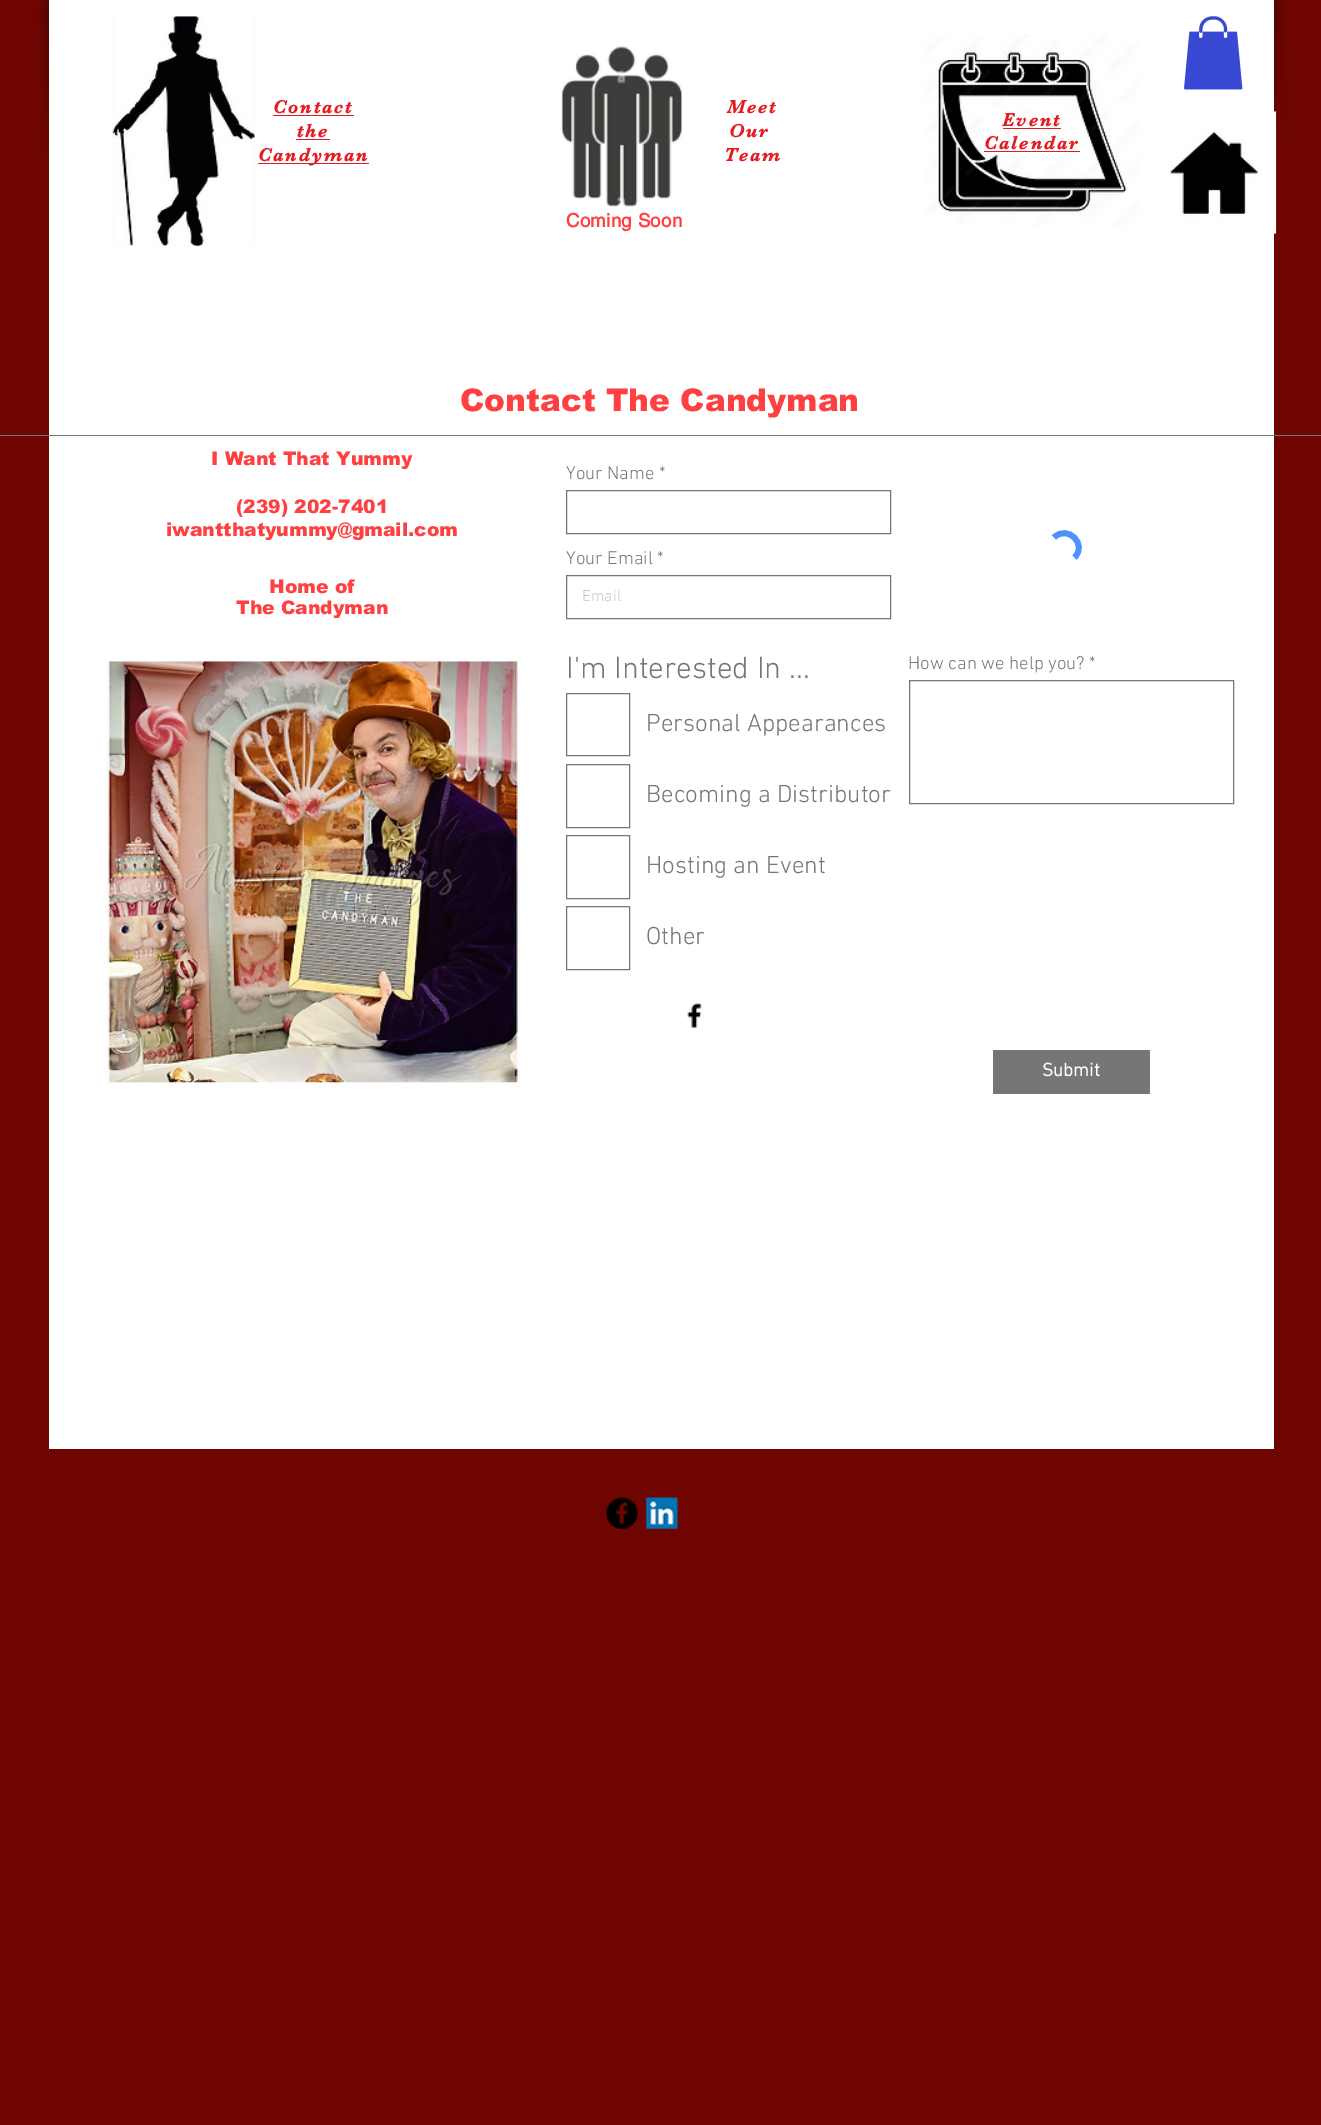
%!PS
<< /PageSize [1321 2125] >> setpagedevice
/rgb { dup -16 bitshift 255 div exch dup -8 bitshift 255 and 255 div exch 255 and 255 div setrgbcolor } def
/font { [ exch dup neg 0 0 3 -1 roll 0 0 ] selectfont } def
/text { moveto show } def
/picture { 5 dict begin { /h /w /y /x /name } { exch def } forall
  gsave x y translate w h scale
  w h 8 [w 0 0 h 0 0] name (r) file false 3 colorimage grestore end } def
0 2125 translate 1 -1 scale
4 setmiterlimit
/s1 { /arial-Black 31.25 font 16#FF4040 rgb } def
/s2 { /arial-Black 18.75 font 16#FF4040 rgb } def
/s3 { /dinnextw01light-Light 18.75 font 16#767676 rgb } def
/s4 { /dinnextw01light-Light 16 font 16#C7C7C7 rgb } def
/s5 { /dinnextw01light-Light 31.25 font 16#767676 rgb } def
/s6 { /dinnextw01light-Light 25 font 16#767676 rgb } def
/s7 { /dinnextw01light-Bold 18.75 font 16#FFFFFF rgb } def
16#6E0500 rgb
0 0 1321 2125 rectfill
(pic1.raw) 38 0 11 152 picture
16#FFFFFF rgb
49 0 1225 1449 rectfill
(pic2.raw) 1274 0 10 149 picture
(pic3.raw) 112 16 143 231 picture
/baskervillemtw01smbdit-Bold 18.75 font
16#E21C21 rgb
273 113 moveto 2.25 0 (Contact) ashow
273 115 81 1 rectfill
297 137 moveto 2.25 0 (the) ashow
296 139 34 1 rectfill
258 163 111 1 rectfill
258 161 moveto 2.25 0 (Candyman) ashow
(pic4.raw) 561 46 122 161 picture
727 113 moveto 2.25 0 (Meet) ashow
729 137 moveto 2.25 0 (Our) ashow
724 161 moveto 2.25 0 (Team) ashow
(pic5.raw) 924 34 216 193 picture
(pic6.raw) 1184 16 59 74 picture
1002 126 moveto 2.25 0 (Event) ashow
1003 128 58 1 rectfill
984 149 moveto 2.25 0 (Calendar) ashow
984 151 96 1 rectfill
(pic7.raw) 1169 111 108 123 picture
/helvetica-Bold 18.75 font
16#FF4040 rgb
566 227 moveto 0.25 0 (Coming Soon) ashow
s1
(Contact The Candyman) 460 411 text
16#767676 rgb
0 435 1321 1 rectfill
s2
(I Want That Yummy) 211 465 text
(\(239\) 202-7401) 236 513 text
(iwantthatyummy@gmail.com) 166 536 text
s3
(Your Name *) 566 479 text
566.5 490.5 324 43 rectstroke
16#4D90FE rgb
5.8 setlinewidth
1054 537.5 moveto 1067.5 524 1088 544.5 1074.5 557.5 curveto stroke
s3
(Your Email *) 566 564 text
1 setlinewidth
566.5 575.5 324 43 rectstroke
s4
(Email) 582 601 text
s5
(I'm Interested In ...) 566 678 text
566.5 693.5 63 62 rectstroke
s6
(Personal Appearances) 646 731 text
566.5 764.5 63 63 rectstroke
(Becoming a Distributor) 646 802 text
566.5 835.5 63 63 rectstroke
(Hosting an Event) 646 873 text
566.5 906.5 63 63 rectstroke
(Other) 646 944 text
s3
(How can we help you? *) 908 669 text
909.5 680.5 324 123 rectstroke
(pic8.raw) 687 1003 15 25 picture
993 1050 157 44 rectfill
s7
(Submit) 1042 1076 text
s2
(Home of) 269 593 text
(The Candyman) 236 614 text
(pic9.raw) 106 661 414 422 picture
(pic10.raw) 606 1497 32 32 picture
(pic11.raw) 646 1497 32 32 picture
showpage
